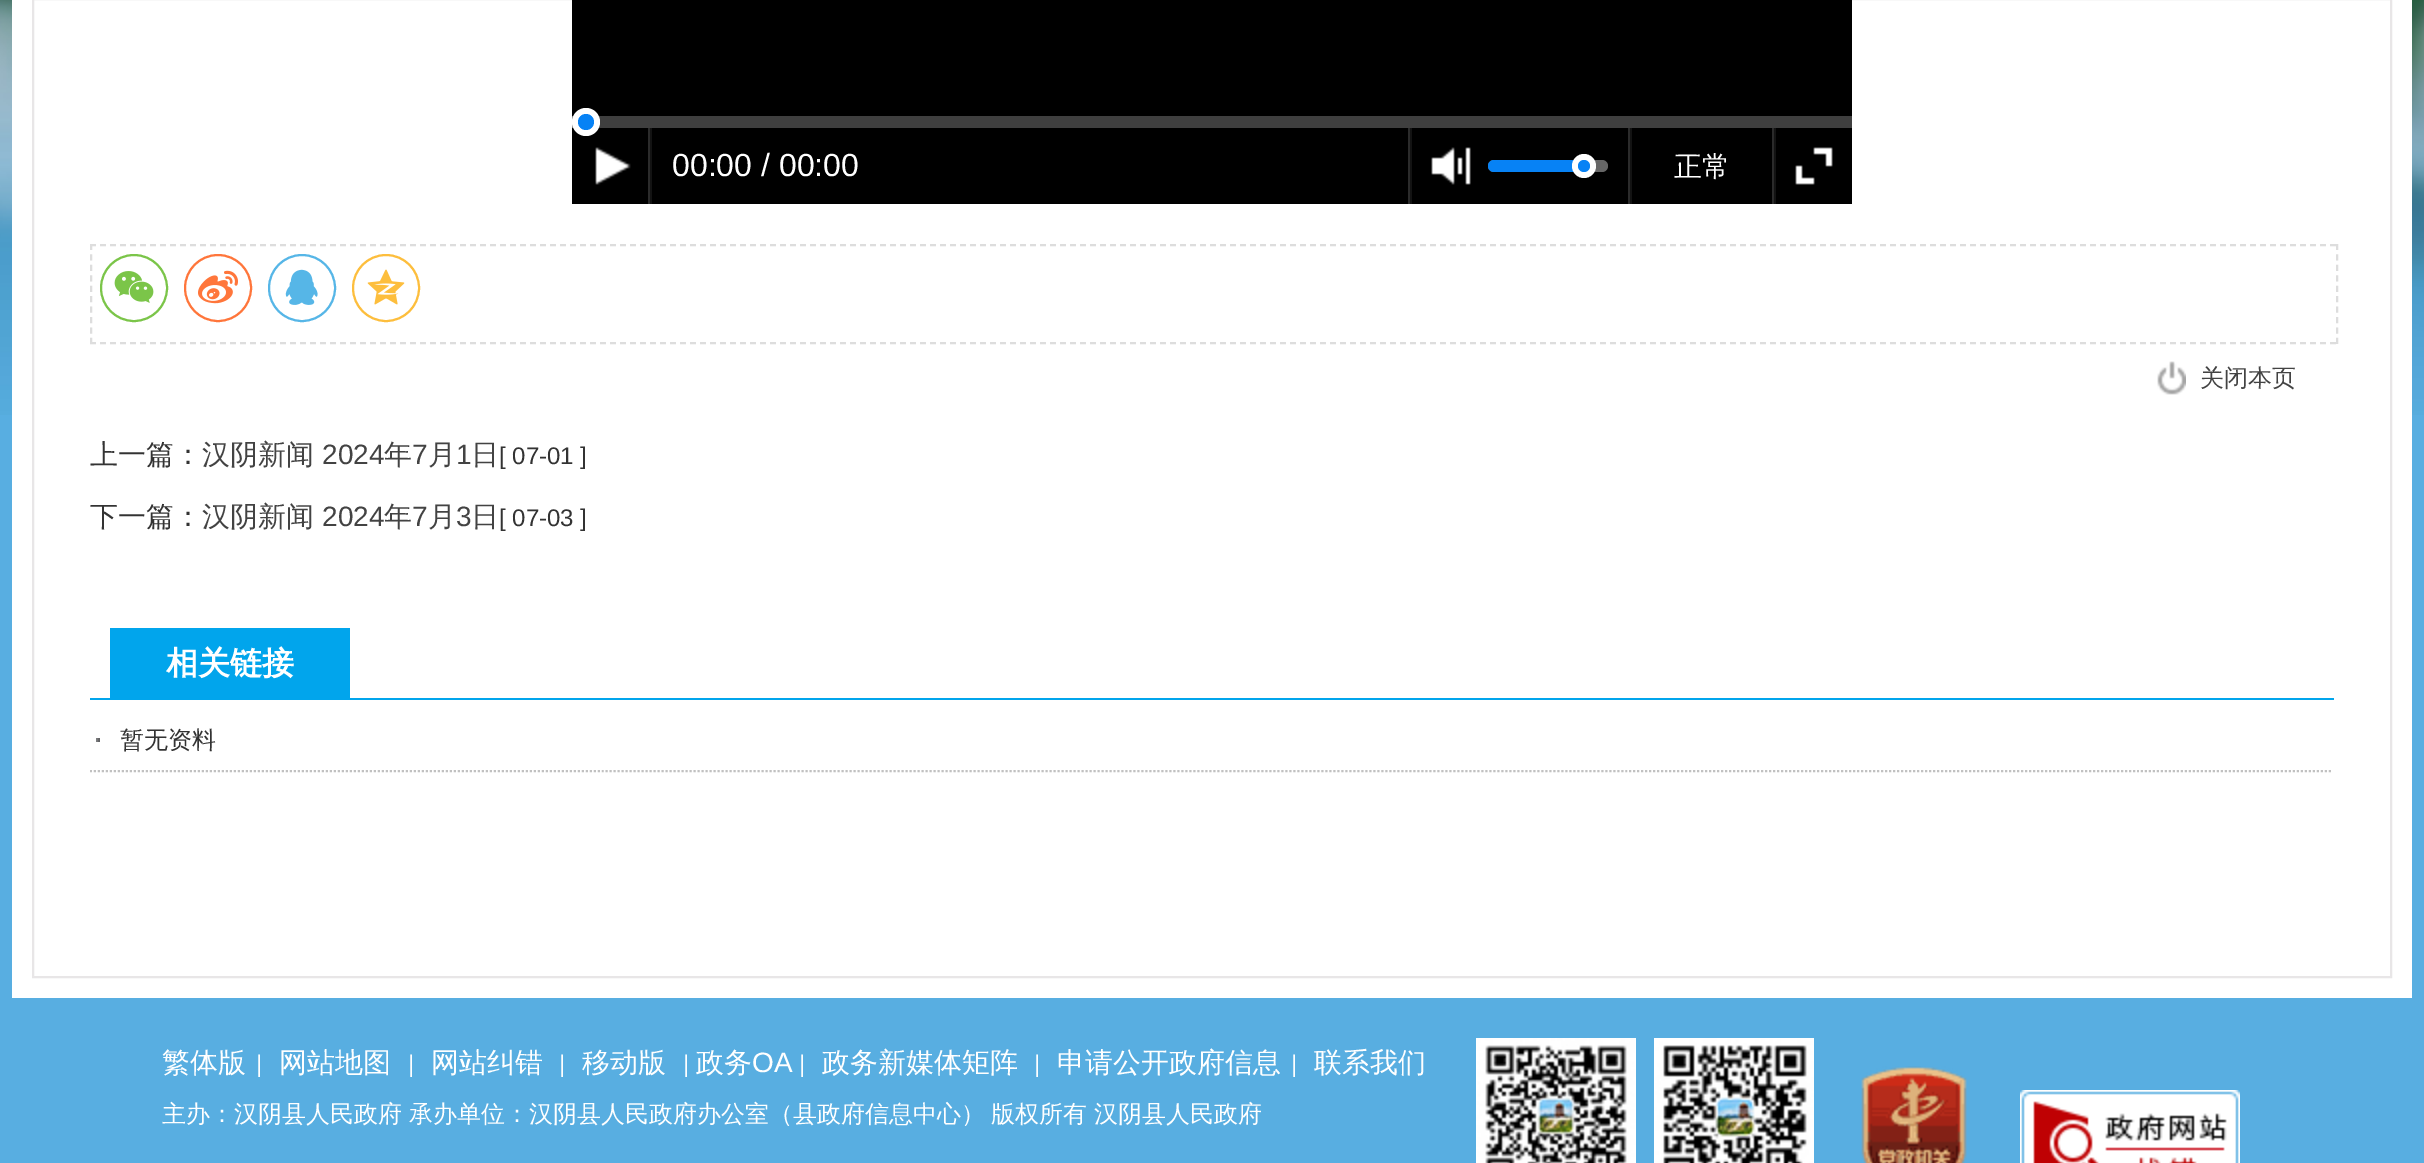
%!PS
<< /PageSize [2424 1163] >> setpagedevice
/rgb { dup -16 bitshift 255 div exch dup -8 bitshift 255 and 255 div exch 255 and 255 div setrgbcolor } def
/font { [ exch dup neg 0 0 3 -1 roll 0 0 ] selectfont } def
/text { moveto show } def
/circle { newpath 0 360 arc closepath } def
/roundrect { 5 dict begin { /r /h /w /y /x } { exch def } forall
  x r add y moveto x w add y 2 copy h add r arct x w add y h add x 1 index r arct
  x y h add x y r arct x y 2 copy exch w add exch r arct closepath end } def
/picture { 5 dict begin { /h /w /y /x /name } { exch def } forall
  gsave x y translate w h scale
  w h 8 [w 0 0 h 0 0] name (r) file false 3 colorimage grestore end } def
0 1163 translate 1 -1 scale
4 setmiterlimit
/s1 { /LiberationSans-Regular 32 font 16#FFFFFF rgb } def
/s2 { /WenQuanYiZenHei-Medium 28 font 16#FFFFFF rgb } def
/s3 { /WenQuanYiZenHei-Medium 24 font 16#434343 rgb } def
/s4 { /WenQuanYiZenHei-Medium 28 font 16#333333 rgb } def
/s5 { /WenQuanYiZenHei-Medium 28 font 16#434343 rgb } def
/s6 { /LiberationSans-Regular 28 font 16#434343 rgb } def
/s7 { /LiberationSans-Regular 24 font 16#333333 rgb } def
/s8 { /WenQuanYiZenHei-Bold 32 font 16#FFFFFF rgb } def
/s9 { /WenQuanYiZenHei-Medium 24 font 16#333333 rgb } def
/s10 { /LiberationSans-Regular 24 font 16#FFFFFF rgb } def
/s11 { /LiberationSans-Regular 28 font 16#FFFFFF rgb } def
16#58AEE1 rgb
0 0 2424 1163 rectfill
(pic1.raw) 0 0 2424 415 picture
16#FFFFFF rgb
12 0 2400 998 rectfill
16#E8E6E7 rgb
2 setlinewidth
33 -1 2358 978 rectstroke
16#000000 rgb
572 0 1280 204 rectfill
16#3F3F3F rgb
598 116 1254 12 rectfill
16#6F6F6F rgb
572 116 2 12 rectfill
16#FFFFFF rgb
586 122 14 circle fill
16#0782F5 rgb
586 122 8 circle fill
(pic2.raw) 595 147 36 38 picture
16#131313 rgb
650 128 2 76 rectfill
16#2B2B2B rgb
648 128 2 76 rectfill
s1
(00:00 / 00:00) 672 176 text
16#131313 rgb
1410 128 2 76 rectfill
16#2B2B2B rgb
1408 128 2 76 rectfill
(pic3.raw) 1431 147 40 38 picture
16#666666 rgb
1488 160 120 12 6 roundrect fill
16#0782F5 rgb
1488 160 96 12 6 roundrect fill
16#FFFFFF rgb
1584 166 12 circle fill
16#0782F5 rgb
1584 166 6 circle fill
16#131313 rgb
1630 128 2 76 rectfill
16#2B2B2B rgb
1628 128 2 76 rectfill
s2
(正常) 1674 176 text
16#131313 rgb
1774 128 2 76 rectfill
16#2B2B2B rgb
1772 128 2 76 rectfill
(pic4.raw) 1795 147 38 38 picture
16#DDDDDD rgb
[6 4] 0 setdash
90 245 moveto 2338 245 lineto stroke
[6 4.44] 0 setdash
2337 244 moveto 2337 344 lineto stroke
[6 4] 0 setdash
90 343 moveto 2338 343 lineto stroke
[6 4.44] 0 setdash
91 244 moveto 91 344 lineto stroke
16#7BC549 rgb
[] 0 setdash
134 288 33 circle stroke
(pic5.raw) 114 271 40 32 picture
16#FF763B rgb
218 288 33 circle stroke
(pic6.raw) 198 270 40 34 picture
16#56B6E7 rgb
302 288 33 circle stroke
(pic7.raw) 285 269 33 36 picture
16#FDBE3D rgb
386 288 33 circle stroke
(pic8.raw) 367 269 38 36 picture
(pic9.raw) 2157 361 29 34 picture
s3
(关闭本页) 2200 386 text
s4
(上一篇：) 90 464 text
s5
(汉阴新闻) 202 464 text
s6
(2024) 322 464 text
s5
(年) 384 464 text
s6
(7) 412 464 text
s5
(月) 428 464 text
s6
(1) 456 464 text
s5
(日) 471 464 text
s7
([ 07-01 ]) 499 464 text
s4
(下一篇：) 90 526 text
s5
(汉阴新闻) 202 526 text
s6
(2024) 322 526 text
s5
(年) 384 526 text
s6
(7) 412 526 text
s5
(月) 428 526 text
s6
(3) 456 526 text
s5
(日) 471 526 text
s7
([ 07-03 ]) 499 526 text
16#01A5EC rgb
90 698 2244 2 rectfill
110 628 240 70 rectfill
s8
(相关链接) 166 674 text
(pic10.raw) 96 738 4 4 picture
16#C1C1C1 rgb
[2 2] 0 setdash
90 771 moveto 2334 771 lineto stroke
s9
(暂无资料) 120 748 text
s2
(繁体版) 162 1072 text
s10
(|) 256 1072 text
s2
(网站地图) 279 1072 text
s10
(|) 408 1072 text
s2
(网站纠错) 431 1072 text
s10
(|) 559 1072 text
s2
(移动版) 582 1072 text
s10
(|) 683 1072 text
s2
(政务) 696 1072 text
s11
(OA) 752 1072 text
s10
(|) 799 1072 text
s2
(政务新媒体矩阵) 822 1072 text
s10
(|) 1034 1072 text
s2
(申请公开政府信息) 1057 1072 text
s10
(|) 1291 1072 text
s2
(联系我们) 1314 1072 text
/WenQuanYiZenHei-Medium 24 font
162 1122 moveto -0.5 0 32 (主办：汉阴县人民政府 承办单位：汉阴县人民政府办公室（县政府信息中心） 版权所有 汉阴县人民政府) widthshow
(pic11.raw) 1476 1038 160 125 picture
(pic12.raw) 1654 1038 160 125 picture
(pic13.raw) 1861 1066 106 97 picture
(pic14.raw) 2020 1090 220 73 picture
showpage
